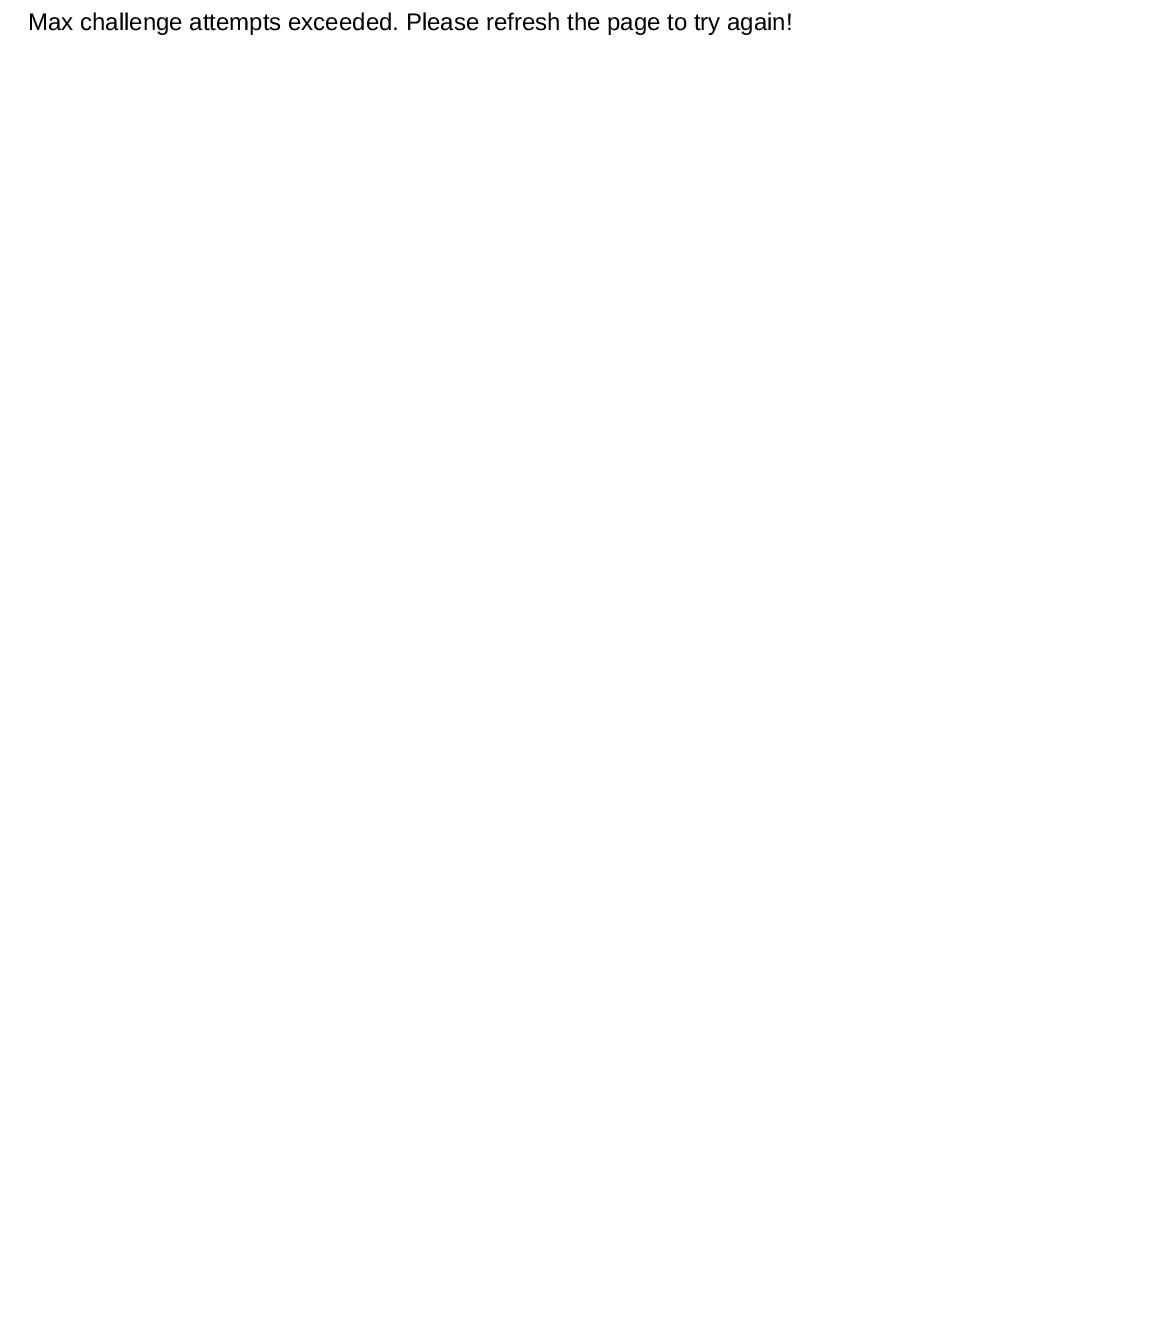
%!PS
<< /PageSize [1151 1337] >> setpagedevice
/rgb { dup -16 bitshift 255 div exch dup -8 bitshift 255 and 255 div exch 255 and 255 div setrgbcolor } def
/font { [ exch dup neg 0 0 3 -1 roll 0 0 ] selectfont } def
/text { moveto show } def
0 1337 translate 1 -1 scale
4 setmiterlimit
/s1 { /LiberationSans-Regular 24 font 16#000000 rgb } def
16#FFFFFF rgb
0 0 1151 1337 rectfill
s1
(Max challenge attempts exceeded. Please refresh the page to try again!) 28 30 text
showpage
